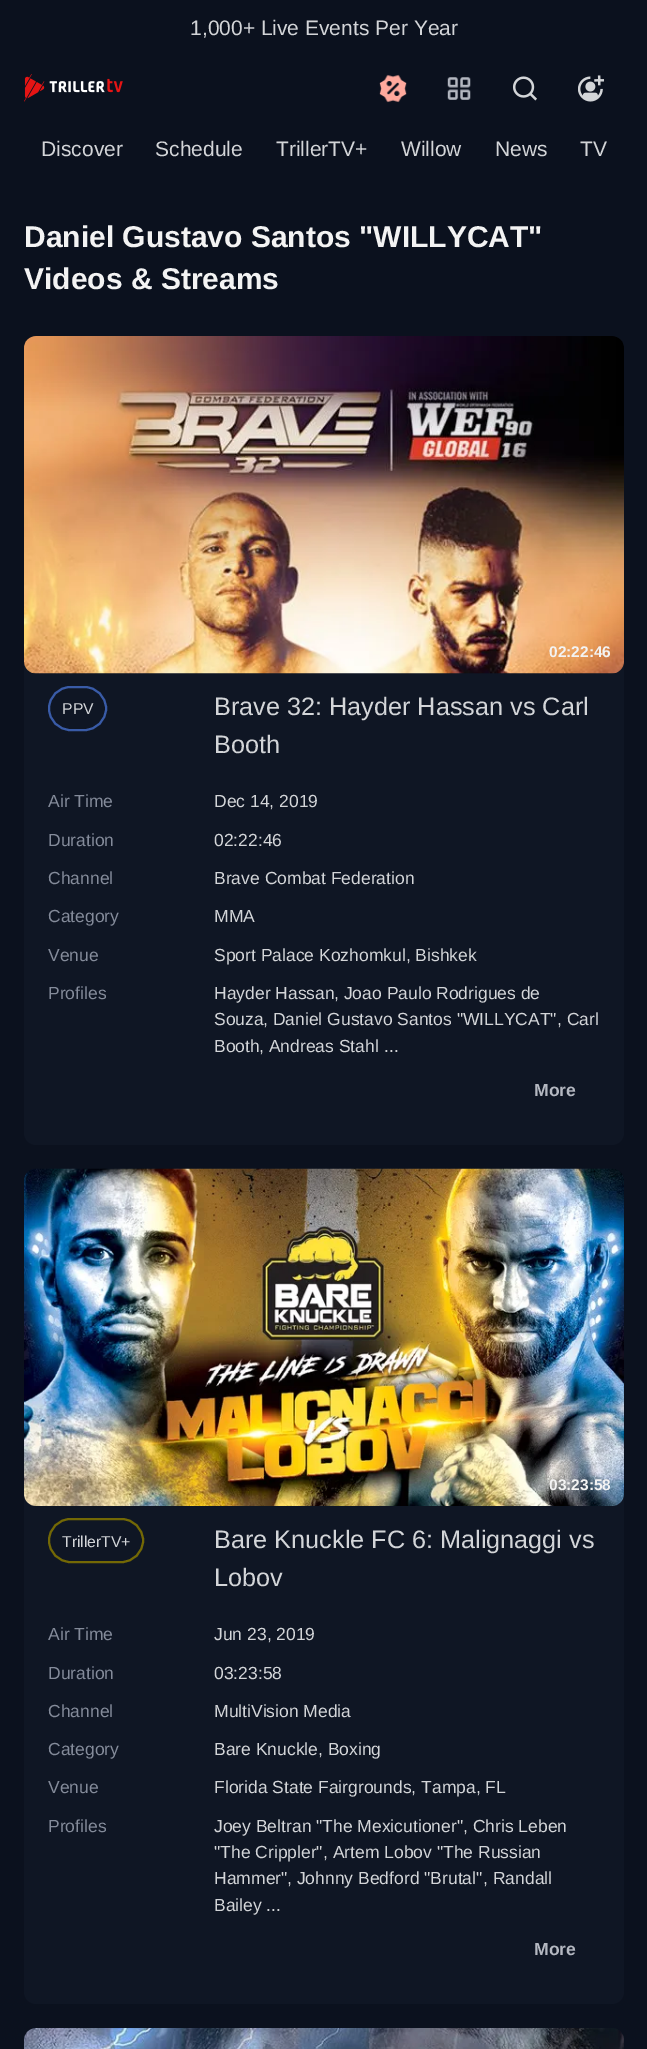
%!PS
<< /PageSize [647 2049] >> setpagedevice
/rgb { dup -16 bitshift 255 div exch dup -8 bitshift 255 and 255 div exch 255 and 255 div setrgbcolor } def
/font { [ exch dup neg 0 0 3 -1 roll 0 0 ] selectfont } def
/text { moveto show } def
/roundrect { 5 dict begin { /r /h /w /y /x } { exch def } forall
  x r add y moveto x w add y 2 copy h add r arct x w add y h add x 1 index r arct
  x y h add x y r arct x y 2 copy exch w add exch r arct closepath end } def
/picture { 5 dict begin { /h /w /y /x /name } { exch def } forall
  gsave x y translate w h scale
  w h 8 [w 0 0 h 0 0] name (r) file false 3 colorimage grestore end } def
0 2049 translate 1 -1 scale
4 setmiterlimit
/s1 { /LiberationSans-Regular 21 font 16#D3D5D8 rgb } def
/s2 { /LiberationSans-Bold 30 font 16#F3F3F3 rgb } def
/s3 { /LiberationSans-Bold 15.5 font 16#F3F3F3 rgb } def
/s4 { /LiberationSans-Regular 15.75 font 16#D3D5D8 rgb } def
/s5 { /LiberationSans-Regular 25.25 font 16#D3D5D8 rgb } def
/s6 { /LiberationSans-Regular 17.5 font 16#848B9A rgb } def
/s7 { /LiberationSans-Regular 17.5 font 16#D3D5D8 rgb } def
/s8 { /LiberationSans-Bold 17.5 font 16#B4B8C1 rgb } def
16#0B111E rgb
0 0 647 2049 rectfill
s1
(1,000+ Live Events Per Year) 190 35 text
(pic1.raw) 24 74 99 28 picture
(pic2.raw) 379 74 28 29 picture
(pic3.raw) 447 77 24 23 picture
(pic4.raw) 513 76 24 25 picture
(pic5.raw) 578 75 26 27 picture
(Discover) 41 156 text
(Schedule) 155 156 text
(TrillerTV+) 276 156 text
(Willow) 401 156 text
(News) 495 156 text
(TV) 580 156 text
s2
(Daniel Gustavo Santos "WILLYCAT") 24 247 text
(Videos & Streams) 24 289 text
16#0F1624 rgb
24 336 600 809 12 roundrect fill
(pic6.raw) 24 336 600 338 picture
s3
(02:22:46) 549 657 text
16#395BA7 rgb
2 setlinewidth
49 687 57 43 21.5 roundrect stroke
s4
(PPV) 62 714 text
s5
(Brave 32: Hayder Hassan vs Carl) 214 715 text
(Booth) 214 753 text
s6
(Air Time) 48 807 text
s7
(Dec 14, 2019) 214 807 text
s6
(Duration) 48 846 text
s7
(02:22:46) 214 846 text
s6
(Channel) 48 884 text
s7
(Brave Combat Federation) 214 884 text
s6
(Category) 48 922 text
s7
(MMA) 214 922 text
s6
(Venue) 48 961 text
s7
(Sport Palace Kozhomkul, Bishkek) 214 961 text
s6
(Profiles) 48 999 text
s7
(Hayder Hassan) 214 999 text
(, Joao Paulo Rodrigues de) 334 999 text
(Souza) 214 1025 text
(, Daniel Gustavo Santos "WILLYCAT") 263 1025 text
(, Carl) 557 1025 text
(Booth) 214 1052 text
(, Andreas Stahl) 259 1052 text
(...) 384 1052 text
s8
(More) 534 1096 text
16#0F1624 rgb
24 1169 600 835 12 roundrect fill
(pic7.raw) 24 1168 600 338 picture
s3
(03:23:58) 549 1490 text
16#736805 rgb
49 1519 94 43 21.5 roundrect stroke
s4
(TrillerTV+) 62 1547 text
s5
(Bare Knuckle FC 6: Malignaggi vs) 214 1548 text
(Lobov) 214 1586 text
s6
(Air Time) 48 1640 text
s7
(Jun 23, 2019) 214 1640 text
s6
(Duration) 48 1679 text
s7
(03:23:58) 214 1679 text
s6
(Channel) 48 1717 text
s7
(MultiVision Media) 214 1717 text
s6
(Category) 48 1755 text
s7
(Bare Knuckle) 214 1755 text
(, Boxing) 318 1755 text
s6
(Venue) 48 1793 text
s7
(Florida State Fairgrounds, Tampa, FL) 214 1793 text
s6
(Profiles) 48 1832 text
s7
(Joey Beltran "The Mexicutioner") 214 1832 text
(, Chris Leben) 463 1832 text
("The Crippler") 214 1858 text
(, Artem Lobov "The Russian) 323 1858 text
(Hammer") 214 1884 text
(, Johnny Bedford "Brutal") 287 1884 text
(, Randall) 483 1884 text
(Bailey) 214 1911 text
(...) 266 1911 text
s8
(More) 534 1955 text
16#0F1624 rgb
24 2028 600 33 12 roundrect fill
(pic8.raw) 24 2028 600 21 picture
showpage
